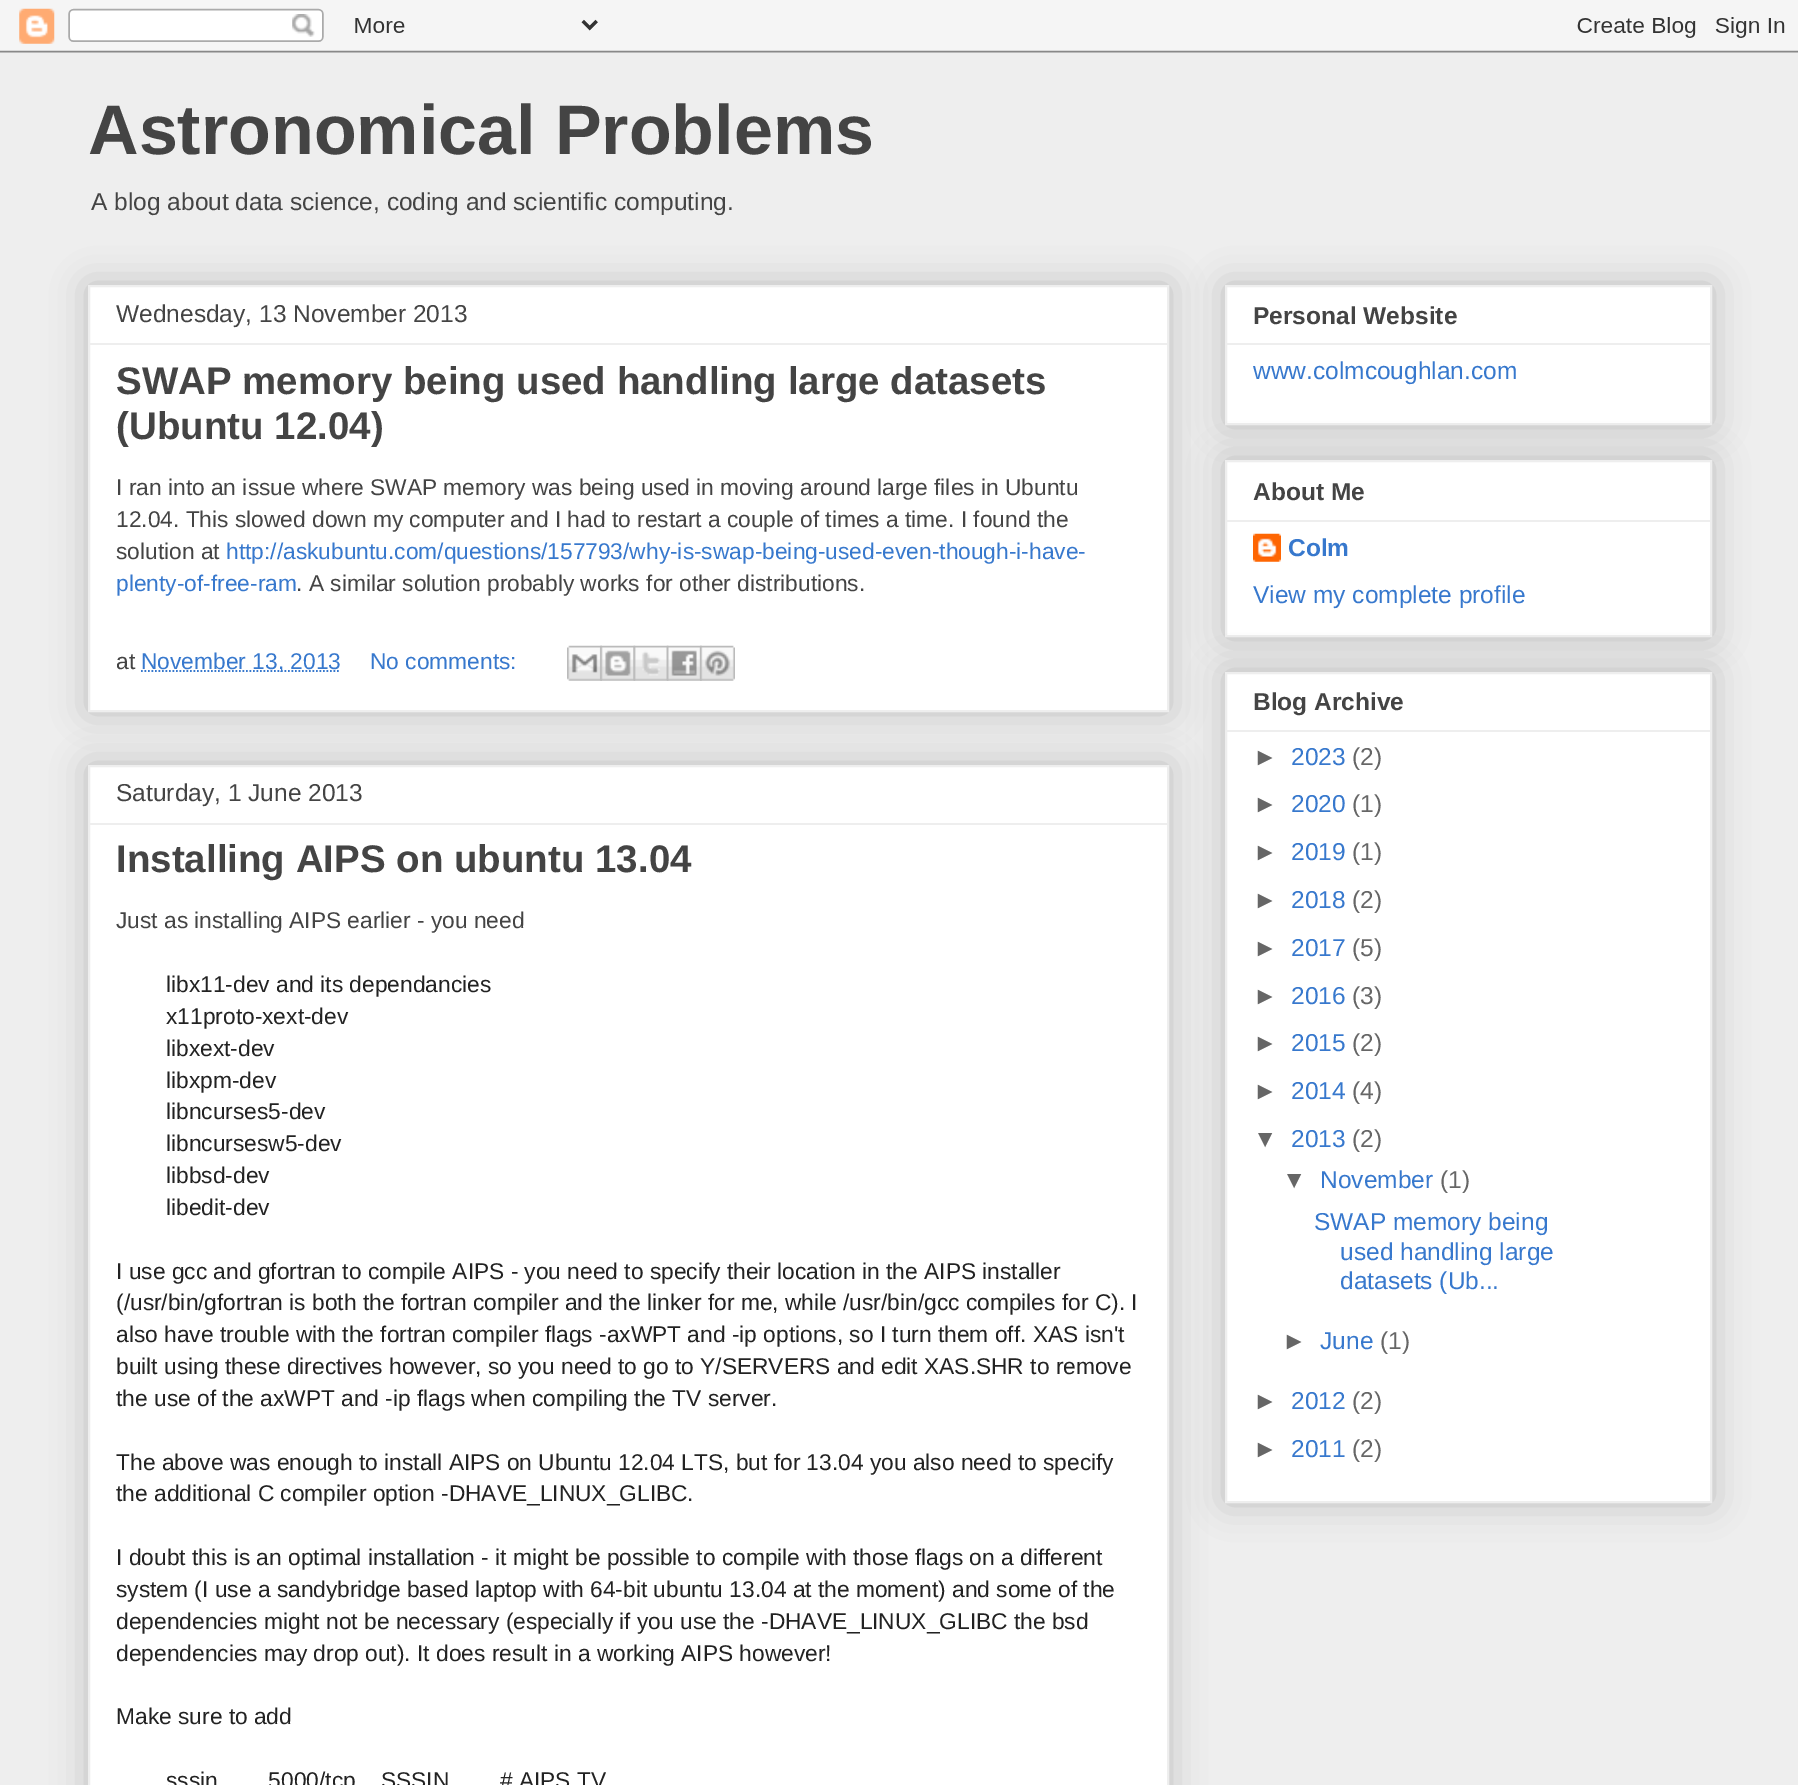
%!PS
<< /PageSize [1798 1785] /PageUsesTransparency true >> setpagedevice
/rgb { dup -16 bitshift 255 div exch dup -8 bitshift 255 and 255 div exch 255 and 255 div setrgbcolor } def
/font { [ exch dup neg 0 0 3 -1 roll 0 0 ] selectfont } def
/text { moveto show } def
/alpha { dup .setfillconstantalpha .setstrokeconstantalpha } def
/roundrect { 5 dict begin { /r /h /w /y /x } { exch def } forall
  x r add y moveto x w add y 2 copy h add r arct x w add y h add x 1 index r arct
  x y h add x y r arct x y 2 copy exch w add exch r arct closepath end } def
/shadow { 12 dict begin { /a /b /q /h /w /y /x } { exch def } forall gsave /was 0 def
  9 -2 -9 { dup b mul 4 div /e exch def 1 sub .425 mul 2.718 exch exp 1 add a .99 .min exch div /now exch def
    1 1 now sub 1 was sub div sub alpha /was now def
    w h .min e 2 mul add 0 gt { x e sub y e sub w e 2 mul add h e 2 mul add
      q e add b .6 mul add w h .min 2 div e add .min 0 .max roundrect fill } if } for grestore end } def
/picture { 5 dict begin { /h /w /y /x /name } { exch def } forall
  gsave x y translate w h scale
  w h 8 [w 0 0 h 0 0] name (r) file false 3 colorimage grestore end } def
0 .pushpdf14devicefilter
0 1785 translate 1 -1 scale
4 setmiterlimit
/s1 { /LiberationSans-Bold 70 font 16#444444 rgb } def
/s2 { /LiberationSans-Regular 24.5 font 16#444444 rgb } def
/s3 { /LiberationSans-Bold 38.5 font 16#444444 rgb } def
/s4 { /LiberationSans-Regular 22.75 font 16#444444 rgb } def
/s5 { /LiberationSans-Regular 22.75 font 16#3778CD rgb } def
/s6 { /LiberationSans-Regular 22.75 font 16#222222 rgb } def
/s7 { /LiberationSans-Bold 24.5 font 16#444444 rgb } def
/s8 { /LiberationSans-Regular 24.5 font 16#3778CD rgb } def
/s9 { /LiberationSans-Bold 24.5 font 16#3778CD rgb } def
/s10 { /LiberationSans-Regular 24.5 font 16#666666 rgb } def
16#EEEEEE rgb
0 0 1798 1785 rectfill
(pic1.raw) 0 0 1798 53 picture
s1
(Astronomical Problems) 88 154 text
s2
(A blog about data science, coding and scientific computing.) 91 210 text
16#000000 rgb
88 285 1081 427 0 17.5 0.2 shadow
16#FFFFFF rgb
89 286 moveto 1168 286 lineto 1168 711 lineto 89 711 lineto closepath gsave fill grestore
16#EEEEEE rgb
2 setlinewidth
stroke
s2
(Wednesday, 13 November 2013) 116 322 text
16#EEEEEE rgb
89 343 1078 2 rectfill
s3
(SWAP memory being used handling large datasets) 116 394 text
(\(Ubuntu 12.04\)) 116 439 text
s4
(I ran into an issue where SWAP memory was being used in moving around large files in Ubuntu) 116 495 text
(12.04. This slowed down my computer and I had to restart a couple of times a time. I found the) 116 527 text
(solution at) 116 559 text
s5
(http://askubuntu.com/questions/157793/why-is-swap-being-used-even-though-i-have-) 226 559 text
(plenty-of-free-ram) 116 591 text
s4
(. A similar solution probably works for other distributions.) 296 591 text
(at) 116 669 text
16#3778CD rgb
1.8 setlinewidth
[1.75 1.75] 0 setdash
141 671 moveto 340.5 671 lineto stroke
(November 13, 2013) 141 669 text
(No comments:) 370 669 text
(pic2.raw) 567 645 35 36 picture
(pic3.raw) 600 645 36 36 picture
(pic4.raw) 633 645 36 36 picture
(pic5.raw) 666 645 36 36 picture
(pic6.raw) 700 645 35 36 picture
16#000000 rgb
88 765 1081 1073 0 17.5 0.2 shadow
16#FFFFFF rgb
89 766 moveto 1168 766 lineto 1168 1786 lineto 89 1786 lineto closepath gsave fill grestore
16#EEEEEE rgb
2 setlinewidth
[] 0 setdash
stroke
s2
(Saturday, 1 June 2013) 116 801 text
16#EEEEEE rgb
89 823 1078 2 rectfill
s3
(Installing AIPS on ubuntu 13.04) 116 872 text
s4
(Just as installing AIPS earlier - you need) 116 928 text
s6
(libx11-dev and its dependancies) 166 992 text
(x11proto-xext-dev) 166 1024 text
(libxext-dev) 166 1056 text
(libxpm-dev) 166 1088 text
(libncurses5-dev) 166 1119 text
(libncursesw5-dev) 166 1151 text
(libbsd-dev) 166 1183 text
(libedit-dev) 166 1215 text
(I use gcc and gfortran to compile AIPS - you need to specify their location in the AIPS installer) 116 1279 text
(\(/usr/bin/gfortran is both the fortran compiler and the linker for me, while /usr/bin/gcc compiles for C\). I) 116 1310 text
(also have trouble with the fortran compiler flags -axWPT and -ip options, so I turn them off. XAS isn't) 116 1342 text
(built using these directives however, so you need to go to Y/SERVERS and edit XAS.SHR to remove) 116 1374 text
(the use of the axWPT and -ip flags when compiling the TV server.) 116 1406 text
(The above was enough to install AIPS on Ubuntu 12.04 LTS, but for 13.04 you also need to specify) 116 1470 text
(the additional C compiler option -DHAVE_LINUX_GLIBC.) 116 1501 text
(I doubt this is an optimal installation - it might be possible to compile with those flags on a different) 116 1565 text
(system \(I use a sandybridge based laptop with 64-bit ubuntu 13.04 at the moment\) and some of the) 116 1597 text
(dependencies might not be necessary \(especially if you use the -DHAVE_LINUX_GLIBC the bsd) 116 1629 text
(dependencies may drop out\). It does result in a working AIPS however!) 116 1661 text
(Make sure to add) 116 1724 text
(sssin        5000/tcp    SSSIN        # AIPS TV) 166 1788 text
16#000000 rgb
1225 285 487 140 0 17.5 0.2 shadow
16#FFFFFF rgb
1226 286 moveto 1711 286 lineto 1711 424 lineto 1226 424 lineto closepath gsave fill grestore
16#EEEEEE rgb
stroke
s7
(Personal Website) 1253 324 text
16#EEEEEE rgb
1227 343 483 2 rectfill
s8
(www.colmcoughlan.com) 1253 379 text
16#000000 rgb
1225 460 487 177 0 17.5 0.2 shadow
16#FFFFFF rgb
1226 461 moveto 1711 461 lineto 1711 636 lineto 1226 636 lineto closepath gsave fill grestore
16#EEEEEE rgb
stroke
s7
(About Me) 1253 500 text
16#EEEEEE rgb
1227 520 483 2 rectfill
(pic7.raw) 1253 533 28 29 picture
s9
(Colm) 1288 556 text
s8
(View my complete profile) 1253 603 text
16#000000 rgb
1225 672 487 831 0 17.5 0.2 shadow
16#FFFFFF rgb
1226 673 moveto 1711 673 lineto 1711 1502 lineto 1226 1502 lineto closepath gsave fill grestore
16#EEEEEE rgb
stroke
s7
(Blog Archive) 1253 710 text
16#EEEEEE rgb
1227 730 483 2 rectfill
s10
(►) 1253 765 text
s8
(2023) 1291 765 text
s10
(\(2\)) 1352 765 text
(►) 1253 812 text
s8
(2020) 1291 812 text
s10
(\(1\)) 1352 812 text
(►) 1253 860 text
s8
(2019) 1291 860 text
s10
(\(1\)) 1352 860 text
(►) 1253 908 text
s8
(2018) 1291 908 text
s10
(\(2\)) 1352 908 text
(►) 1253 956 text
s8
(2017) 1291 956 text
s10
(\(5\)) 1352 956 text
(►) 1253 1004 text
s8
(2016) 1291 1004 text
s10
(\(3\)) 1352 1004 text
(►) 1253 1051 text
s8
(2015) 1291 1051 text
s10
(\(2\)) 1352 1051 text
(►) 1253 1099 text
s8
(2014) 1291 1099 text
s10
(\(4\)) 1352 1099 text
(▼) 1253 1147 text
s8
(2013) 1291 1147 text
s10
(\(2\)) 1352 1147 text
(▼) 1282 1188 text
s8
(November) 1320 1188 text
s10
(\(1\)) 1440 1188 text
s8
(SWAP memory being) 1314 1230 text
(used handling large) 1340 1260 text
(datasets \(Ub...) 1340 1289 text
s10
(►) 1282 1349 text
s8
(June) 1320 1349 text
s10
(\(1\)) 1380 1349 text
(►) 1253 1409 text
s8
(2012) 1291 1409 text
s10
(\(2\)) 1352 1409 text
(►) 1253 1457 text
s8
(2011) 1291 1457 text
s10
(\(2\)) 1352 1457 text
.poppdf14devicefilter showpage
